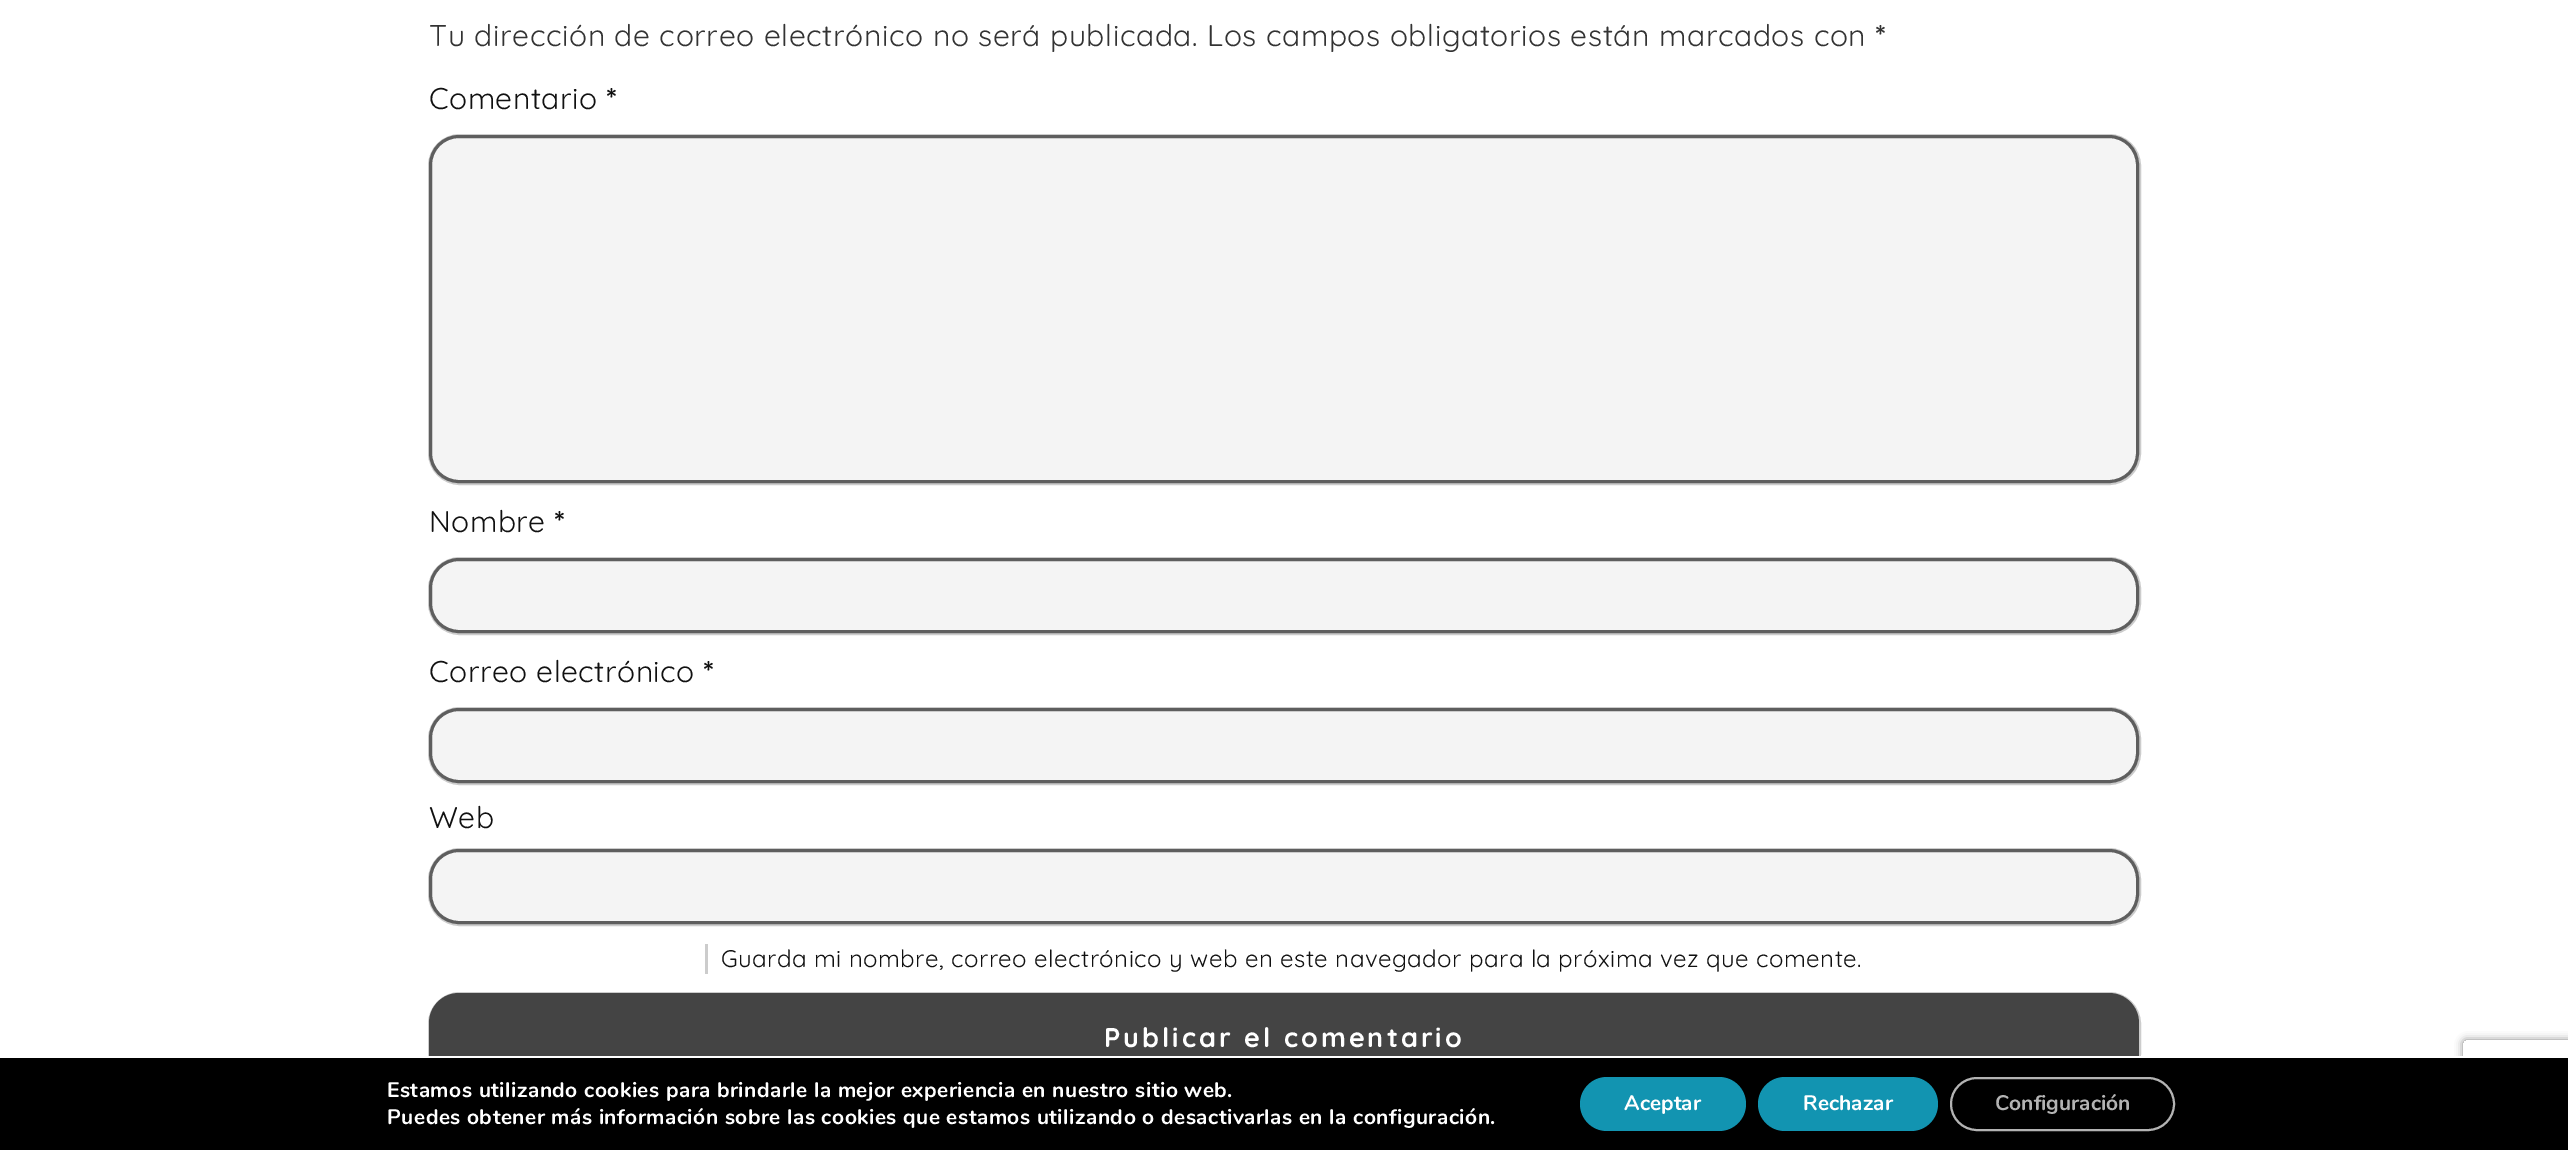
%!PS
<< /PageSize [2568 1150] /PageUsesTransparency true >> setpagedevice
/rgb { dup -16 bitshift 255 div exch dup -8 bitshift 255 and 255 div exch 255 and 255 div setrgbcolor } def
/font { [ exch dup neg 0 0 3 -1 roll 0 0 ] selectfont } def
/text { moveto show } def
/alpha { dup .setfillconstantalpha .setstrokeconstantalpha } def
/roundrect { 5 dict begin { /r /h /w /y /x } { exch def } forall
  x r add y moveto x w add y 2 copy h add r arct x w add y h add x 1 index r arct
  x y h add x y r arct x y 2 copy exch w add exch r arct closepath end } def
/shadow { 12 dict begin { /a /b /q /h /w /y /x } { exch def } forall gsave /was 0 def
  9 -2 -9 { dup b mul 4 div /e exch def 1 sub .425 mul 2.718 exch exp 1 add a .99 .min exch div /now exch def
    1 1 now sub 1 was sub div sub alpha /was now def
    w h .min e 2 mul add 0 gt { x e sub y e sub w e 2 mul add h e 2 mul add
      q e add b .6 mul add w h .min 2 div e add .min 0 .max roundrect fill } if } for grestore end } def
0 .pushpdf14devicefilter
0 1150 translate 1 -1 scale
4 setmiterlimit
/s1 { /Nunito-Bold 21 font 16#FFFFFF rgb } def
/s2 { /Nunito-Bold 21 font 16#B3B3B3 rgb } def
16#FFFFFF rgb
0 0 2568 1150 rectfill
/Quicksand-Regular 30 font
16#333333 rgb
429 46 moveto 0.6 0 (Tu dirección de correo electrónico no será publicada. Los campos obligatorios están marcados con) ashow
/Quicksand-Bold 30 font
1875 46 moveto 0.6 0 (*) ashow
/Quicksand-Regular 30 font
16#111111 rgb
429 109 moveto 0.45 0 (Comentario) ashow
/Quicksand-Bold 30 font
606 109 moveto 0.6 0 (*) ashow
16#CCCCCC rgb
2 setlinewidth
429 135 1711 349 31 roundrect stroke
16#F4F4F4 rgb
430.5 136.5 1707 345 28.5 roundrect gsave fill grestore
16#5E5E5E rgb
3 setlinewidth
stroke
/Quicksand-Regular 30 font
16#111111 rgb
429 532 moveto 0.45 0 (Nombre) ashow
/Quicksand-Bold 30 font
554 532 moveto 0.6 0 (*) ashow
16#CCCCCC rgb
2 setlinewidth
429 558 1711 76 31 roundrect stroke
16#F4F4F4 rgb
430.5 559.5 1707 72 28.5 roundrect gsave fill grestore
16#5E5E5E rgb
3 setlinewidth
stroke
/Quicksand-Regular 30 font
16#111111 rgb
429 682 moveto 0.45 0 (Correo electrónico) ashow
/Quicksand-Bold 30 font
703 682 moveto 0.6 0 (*) ashow
16#CCCCCC rgb
2 setlinewidth
429 708 1711 76 31 roundrect stroke
16#F4F4F4 rgb
430.5 709.5 1707 72 28.5 roundrect gsave fill grestore
16#5E5E5E rgb
3 setlinewidth
stroke
/Quicksand-Regular 30 font
16#111111 rgb
429 828 moveto 0.45 0 (Web) ashow
16#CCCCCC rgb
2 setlinewidth
429 849 1711 76 31 roundrect stroke
16#F4F4F4 rgb
430.5 850.5 1707 72 28.5 roundrect gsave fill grestore
16#5E5E5E rgb
3 setlinewidth
stroke
16#CCCCCC rgb
705 944 3 30 rectfill
/Quicksand-Regular 24 font
16#111111 rgb
721 967 moveto 0.45 0 (Guarda mi nombre, correo electrónico y web en este navegador para la próxima vez que comente.) ashow
16#CCCCCC rgb
2 setlinewidth
429 993 1711 91 31 roundrect stroke
16#444444 rgb
429 993 1710 90 30 roundrect fill
/Quicksand-Bold 27 font
16#FFFFFF rgb
1104 1047 moveto 3 0 (Publicar el comentario) ashow
gsave
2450 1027 moveto 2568 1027 lineto 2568 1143 lineto 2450 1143 lineto closepath 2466 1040 moveto 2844 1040 lineto 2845.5 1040 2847 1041.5 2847 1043 curveto 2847 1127 lineto 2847 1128.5 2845.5 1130 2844 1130 curveto 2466 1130 lineto 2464.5 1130 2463 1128.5 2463 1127 curveto 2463 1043 lineto 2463 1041.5 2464.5 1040 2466 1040 curveto closepath eoclip newpath
16#808080 rgb
2463 1040 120 90 3 4 1 shadow
grestore
16#000000 rgb
0 1058 2568 92 rectfill
16#FFFFFF rgb
428 1056 2035 2 rectfill
/Nunito-Bold 21 font
387 1097 moveto 0.45 0 (Estamos utilizando cookies para brindarle la mejor experiencia en nuestro sitio web.) ashow
387 1124 moveto 0.45 0 (Puedes obtener más información sobre las cookies que estamos utilizando o desactivarlas en la configuración.) ashow
16#1294B1 rgb
1580 1077 166 54 27 roundrect fill
s1
(Aceptar) 1624 1110 text
16#1294B1 rgb
1758 1077 180 54 27 roundrect fill
s1
(Rechazar) 1803 1110 text
16#B3B3B3 rgb
1951 1078 223 52 26 roundrect stroke
(Configuración) 1995 1110 text
.poppdf14devicefilter showpage
